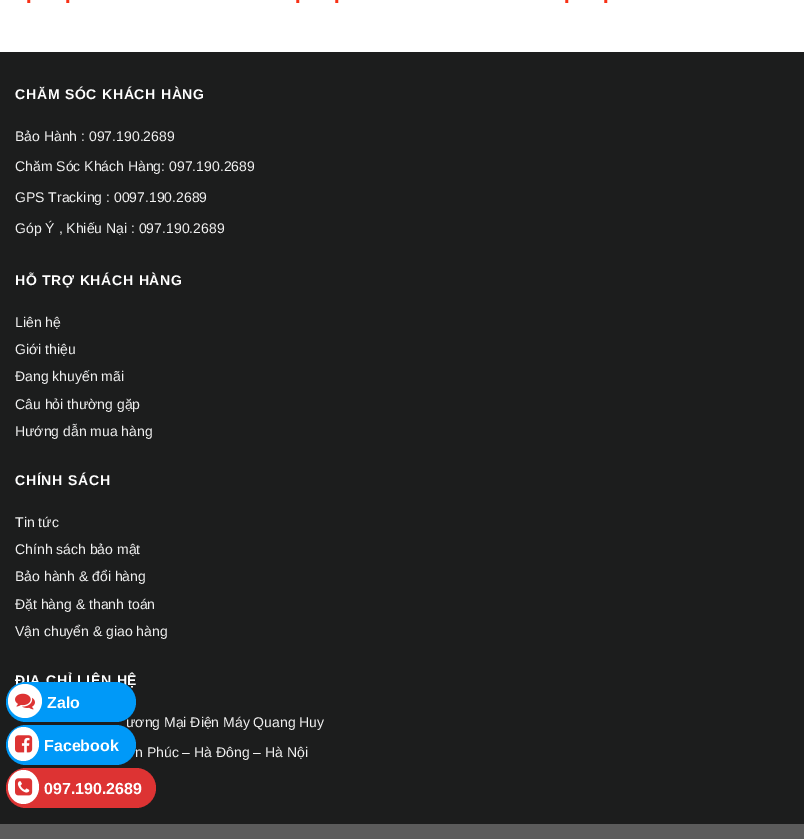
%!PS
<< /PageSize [804 839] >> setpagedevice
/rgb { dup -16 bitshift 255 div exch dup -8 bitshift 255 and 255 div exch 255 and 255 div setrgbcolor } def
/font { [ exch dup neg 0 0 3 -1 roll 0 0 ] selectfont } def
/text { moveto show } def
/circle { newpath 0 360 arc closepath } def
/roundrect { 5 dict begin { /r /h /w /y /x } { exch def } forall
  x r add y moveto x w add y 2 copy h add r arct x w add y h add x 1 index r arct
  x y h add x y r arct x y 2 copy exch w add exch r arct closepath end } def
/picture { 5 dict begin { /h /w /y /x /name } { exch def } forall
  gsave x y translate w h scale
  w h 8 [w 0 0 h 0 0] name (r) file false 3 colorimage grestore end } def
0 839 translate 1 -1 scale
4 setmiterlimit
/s1 { /LiberationSans-Bold 20 font 16#F83015 rgb } def
/s2 { /LiberationSans-Regular 14 font 16#F1F1F1 rgb } def
/s3 { /LiberationSans-Bold 16 font 16#FFFFFF rgb } def
16#FFFFFF rgb
0 0 804 839 rectfill
s1
(.) 26 3 text
(.) 65 3 text
(.) 295 3 text
(.) 334 3 text
(.) 564 3 text
(.) 603 3 text
16#1C1D1D rgb
0 52 804 772 rectfill
/LiberationSans-Bold 14 font
16#FFFFFF rgb
15 99 moveto 0.75 0 (CHĂM SÓC KHÁCH HÀNG) ashow
s2
(Bảo Hành : 097.190.2689) 15 141 text
(Chăm Sóc Khách Hàng: 097.190.2689) 15 171 text
(GPS Tracking : 0097.190.2689) 15 202 text
(Góp Ý , Khiếu Nại : 097.190.2689) 15 233 text
/LiberationSans-Bold 14 font
16#FFFFFF rgb
15 285 moveto 0.75 0 (HỖ TRỢ KHÁCH HÀNG) ashow
s2
(Liên hệ) 15 327 text
(Giới thiệu) 15 354 text
(Đang khuyến mãi) 15 381 text
(Câu hỏi thường gặp) 15 409 text
(Hướng dẫn mua hàng) 15 436 text
/LiberationSans-Bold 14 font
16#FFFFFF rgb
15 485 moveto 0.75 0 (CHÍNH SÁCH) ashow
s2
(Tin tức) 15 527 text
(Chính sách bảo mật) 15 554 text
(Bảo hành & đổi hàng) 15 581 text
(Đặt hàng & thanh toán) 15 609 text
(Vận chuyển & giao hàng) 15 636 text
/LiberationSans-Bold 14 font
16#FFFFFF rgb
15 685 moveto 0.75 0 (ĐỊA CHỈ LIÊN HỆ) ashow
s2
(ương Mại Điện Máy Quang Huy) 126 727 text
(n Phúc – Hà Đông – Hà Nội) 135 757 text
16#0099F8 rgb
6 682 130 40 20 roundrect fill
16#FFFFFF rgb
25 701 17 circle fill
(pic1.raw) 15 693 20 17 picture
s3
(Zalo) 47 708 text
16#0099F8 rgb
6 725 130 40 20 roundrect fill
16#FFFFFF rgb
23.5 727 moveto 32 727 39 734.5 39 744 curveto 39 753.5 32 761 23.5 761 curveto 15 761 8 753.5 8 744 curveto 8 734.5 15 727 23.5 727 curveto closepath fill
(pic2.raw) 15 735 18 18 picture
(Facebook) 44 751 text
16#DD3333 rgb
6 768 150 40 20 roundrect fill
16#FFFFFF rgb
23.5 770 moveto 32 770 39 777.5 39 787 curveto 39 796.5 32 804 23.5 804 curveto 15 804 8 796.5 8 787 curveto 8 777.5 15 770 23.5 770 curveto closepath fill
(pic3.raw) 15 778 18 18 picture
(097.190.2689) 44 794 text
16#5B5B5B rgb
0 824 804 15 rectfill
showpage
